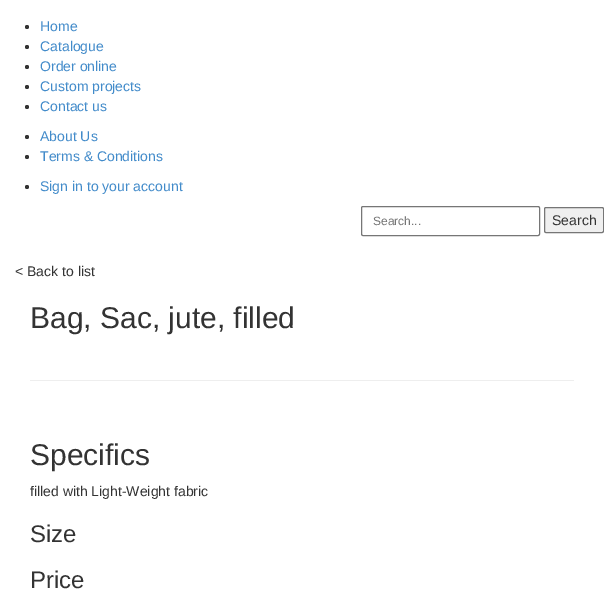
%!PS
<< /PageSize [604 601] >> setpagedevice
/rgb { dup -16 bitshift 255 div exch dup -8 bitshift 255 and 255 div exch 255 and 255 div setrgbcolor } def
/font { [ exch dup neg 0 0 3 -1 roll 0 0 ] selectfont } def
/text { moveto show } def
/circle { newpath 0 360 arc closepath } def
/roundrect { 5 dict begin { /r /h /w /y /x } { exch def } forall
  x r add y moveto x w add y 2 copy h add r arct x w add y h add x 1 index r arct
  x y h add x y r arct x y 2 copy exch w add exch r arct closepath end } def
0 601 translate 1 -1 scale
4 setmiterlimit
/s1 { /LiberationSans-Regular 14 font 16#428BCA rgb } def
/s2 { /LiberationSans-Regular 12 font 16#757575 rgb } def
/s3 { /LiberationSans-Regular 14 font 16#333333 rgb } def
/s4 { /LiberationSans-Regular 30 font 16#333333 rgb } def
/s5 { /LiberationSans-Regular 24 font 16#333333 rgb } def
16#FFFFFF rgb
0 0 604 601 rectfill
16#333333 rgb
27 27 2 circle fill
s1
(Home) 40 31 text
16#333333 rgb
27 47 2 circle fill
s1
(Catalogue) 40 51 text
16#333333 rgb
27 67 2 circle fill
s1
(Order online) 40 71 text
16#333333 rgb
27 87 2 circle fill
s1
(Custom projects) 40 91 text
16#333333 rgb
27 107 2 circle fill
s1
(Contact us) 40 111 text
16#333333 rgb
27 137 2 circle fill
s1
(About Us) 40 141 text
16#333333 rgb
27 157 2 circle fill
s1
(Terms & Conditions) 40 161 text
16#333333 rgb
27 187 2 circle fill
s1
(Sign in to your account) 40 191 text
16#767676 rgb
361.5 206.5 178 29 1.5 roundrect stroke
s2
(Search...) 373 225 text
16#EFEFEF rgb
544.5 207.5 59 25 1.5 roundrect gsave fill grestore
16#767676 rgb
stroke
s3
(Search) 552 225 text
(< Back to list) 15 276 text
s4
(Bag, Sac, jute, filled) 30 328 text
16#EEEEEE rgb
30 380 544 1 rectfill
s4
(Specifics) 30 465 text
s3
(filled with Light-Weight fabric) 30 496 text
s5
(Size) 30 542 text
(Price) 30 588 text
showpage
